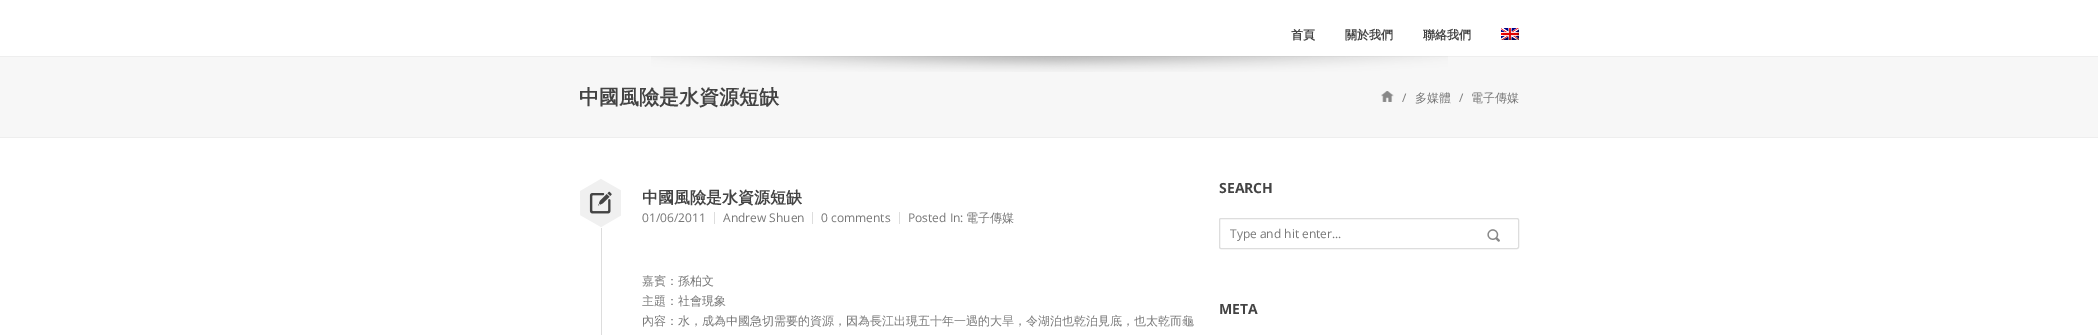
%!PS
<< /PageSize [2098 335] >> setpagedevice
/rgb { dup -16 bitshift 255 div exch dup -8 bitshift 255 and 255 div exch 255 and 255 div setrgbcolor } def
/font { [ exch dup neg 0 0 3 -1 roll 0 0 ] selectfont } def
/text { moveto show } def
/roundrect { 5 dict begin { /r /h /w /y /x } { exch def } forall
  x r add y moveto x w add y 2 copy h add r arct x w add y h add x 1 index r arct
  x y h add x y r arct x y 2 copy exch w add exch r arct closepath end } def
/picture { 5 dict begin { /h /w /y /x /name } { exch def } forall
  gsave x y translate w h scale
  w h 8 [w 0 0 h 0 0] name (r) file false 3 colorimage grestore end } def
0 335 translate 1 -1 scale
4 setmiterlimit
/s1 { /WenQuanYiZenHei-Bold 12 font 16#444444 rgb } def
/s2 { /WenQuanYiZenHei-Bold 20 font 16#444444 rgb } def
/s3 { /OpenSans-Regular 12 font 16#777777 rgb } def
/s4 { /WenQuanYiZenHei-Medium 12 font 16#777777 rgb } def
/s5 { /WenQuanYiZenHei-Bold 16 font 16#444444 rgb } def
/s6 { /OpenSans-Bold 14 font 16#444444 rgb } def
16#FFFFFF rgb
0 0 2098 335 rectfill
s1
(首頁) 1291 39 text
(關於我們) 1345 39 text
(聯絡我們) 1423 39 text
(pic1.raw) 1501 28 18 12 picture
16#F7F7F7 rgb
0 57 2098 80 rectfill
16#EEEEEE rgb
0 56 2098 1 rectfill
(pic2.raw) 651 56 797 16 picture
0 137 2098 1 rectfill
s2
(中國風險是水資源短缺) 579 104 text
(pic3.raw) 1381 91 13 11 picture
s3
(/) 1402 102 text
s4
(多媒體) 1415 102 text
s3
(/) 1459 102 text
s4
(電子傳媒) 1471 102 text
16#DDDDDD rgb
601 228 1 107 rectfill
16#F0F0F0 rgb
580 178 41 50 rectfill
(pic4.raw) 580 178 41 50 picture
(pic5.raw) 589 191 23 23 picture
s5
(中國風險是水資源短缺) 642 203 text
16#DDDDDD rgb
714 212 1 12 rectfill
s3
(01/06/2011) 642 222 text
16#DDDDDD rgb
812 212 1 12 rectfill
s3
(Andrew Shuen) 723 222 text
16#DDDDDD rgb
899 212 1 12 rectfill
s3
(0 comments) 821 222 text
(Posted In:) 908 222 text
s4
(電子傳媒) 966 222 text
(嘉賓：孫柏文) 642 285 text
(主題：社會現象) 642 305 text
(內容：水，成為中國急切需要的資源，因為長江出現五十年一遇的大旱，令湖泊也乾泊見底，也太乾而龜) 642 325 text
s6
(SEARCH) 1219 193 text
16#DDDDDD rgb
1219.5 218.5 299 30 1.5 roundrect stroke
s3
(Type and hit enter...) 1230 238 text
(pic6.raw) 1487 229 13 13 picture
s6
(META) 1219 314 text
showpage
